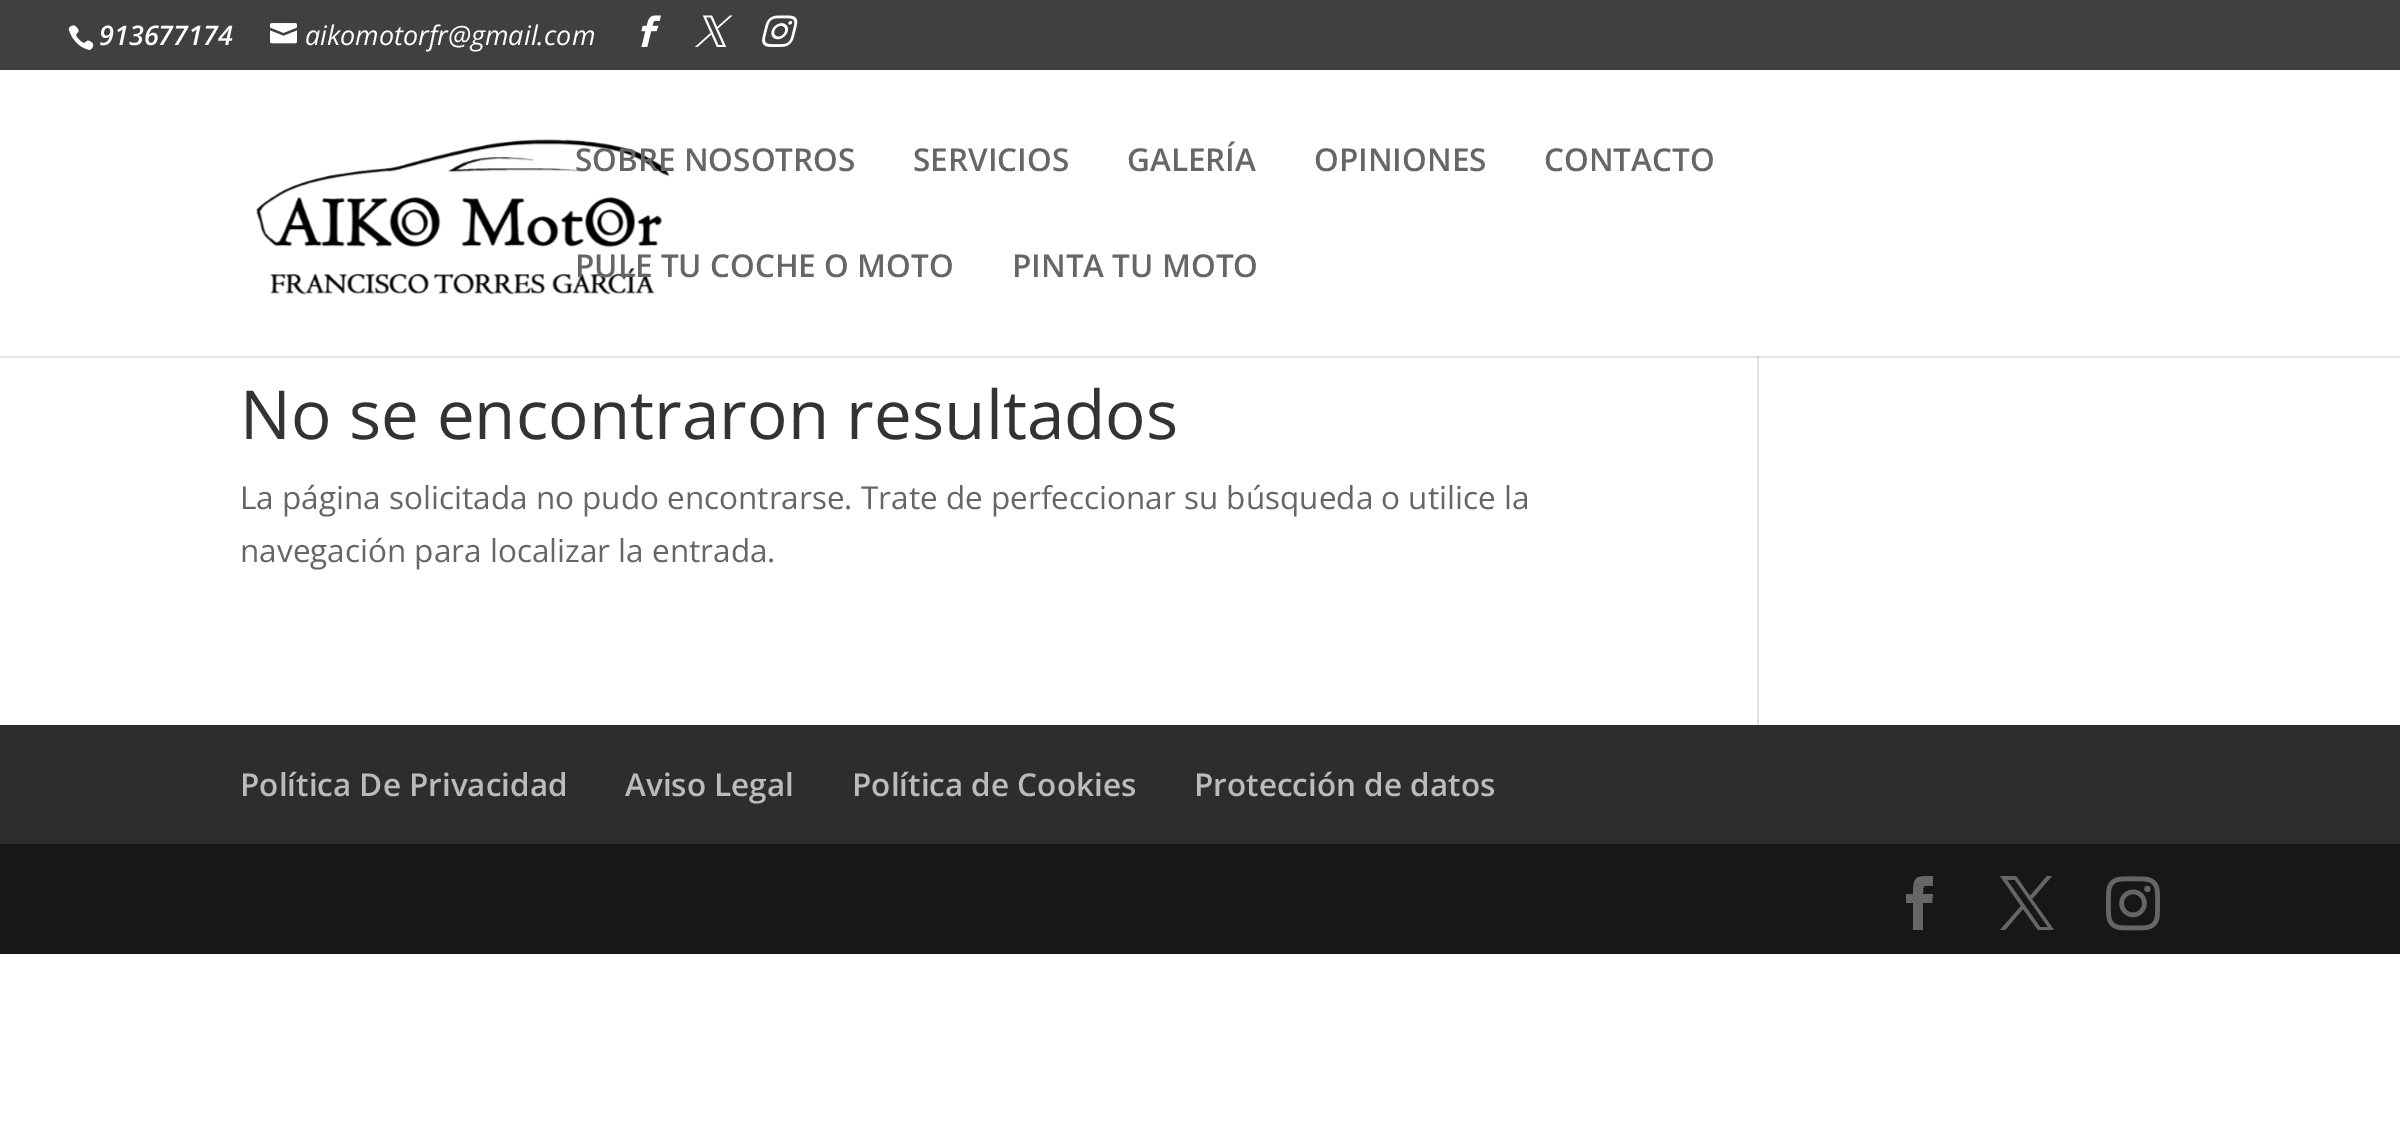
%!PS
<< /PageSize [2400 1128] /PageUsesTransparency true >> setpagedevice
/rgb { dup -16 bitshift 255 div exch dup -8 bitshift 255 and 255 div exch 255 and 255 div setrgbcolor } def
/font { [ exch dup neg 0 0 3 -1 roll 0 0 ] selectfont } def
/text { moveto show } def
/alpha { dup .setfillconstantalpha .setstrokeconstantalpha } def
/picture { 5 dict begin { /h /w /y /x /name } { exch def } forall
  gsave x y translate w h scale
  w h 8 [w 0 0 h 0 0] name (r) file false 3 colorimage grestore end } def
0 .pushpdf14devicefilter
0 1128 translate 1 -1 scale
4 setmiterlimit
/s1 { /OpenSans-SemiBoldItalic 27 font 16#FFFFFF rgb } def
/s2 { /OpenSans-Italic 27 font 16#FFFFFF rgb } def
/s3 { /OpenSans-SemiBold 31.5 font 16#666666 rgb } def
/s4 { /OpenSans-Regular 67.5 font 16#333333 rgb } def
/s5 { /OpenSans-Regular 31.5 font 16#666666 rgb } def
/s6 { /OpenSans-SemiBold 31.5 font 16#BBBBBB rgb } def
16#FFFFFF rgb
0 0 2400 1128 rectfill
16#404040 rgb
0 0 2400 70 rectfill
(pic1.raw) 68 25 26 26 picture
s1
(913677174) 99 45 text
(pic2.raw) 270 23 27 21 picture
s2
(aikomotorfr@gmail.com) 305 45 text
(pic3.raw) 641 15 20 32 picture
(pic4.raw) 695 15 38 32 picture
(pic5.raw) 762 15 36 32 picture
16#E2E2E2 rgb
1757 356 2 369 rectfill
0.1 alpha
16#000000 rgb
0 356 moveto 0 358 lineto 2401 358 lineto 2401 72 lineto 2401 356 lineto closepath fill
1 alpha
(pic6.raw) 256 139 414 156 picture
s3
(SOBRE NOSOTROS) 575 171 text
(SERVICIOS) 913 171 text
(GALERÍA) 1127 171 text
(OPINIONES) 1314 171 text
(CONTACTO) 1544 171 text
(PULE TU COCHE O MOTO) 575 277 text
(PINTA TU MOTO) 1012 277 text
s4
(No se encontraron resultados) 240 439 text
s5
(La página solicitada no pudo encontrarse. Trate de perfeccionar su búsqueda o utilice la) 240 509 text
(navegación para localizar la entrada.) 240 562 text
16#2D2D2D rgb
0 725 2400 119 rectfill
s6
(Política De Privacidad) 240 796 text
(Aviso Legal) 625 796 text
(Política de Cookies) 852 796 text
(Protección de datos) 1194 796 text
16#171717 rgb
0 844 2400 110 rectfill
16#666666 rgb
1913 930 moveto 1923 930 lineto 1923 903 lineto 1932 903 lineto 1933 894 lineto 1923 894 lineto 1923 884 1923 886 1933 886 curveto 1933 876 lineto 1916 876 1913 876 1913 894 curveto 1906 894 lineto 1906 903 lineto 1913 903 lineto closepath fill
2000 876 moveto 2021 906 lineto 2000 930 lineto 2005 930 lineto 2023 909 lineto 2038 930 lineto 2054 930 lineto 2032 899 lineto 2052 876 lineto 2047 876 lineto 2030 896 lineto 2016 876 lineto closepath 2007 880 moveto 2015 880 lineto 2048 927 lineto 2040 927 lineto closepath fill
(pic7.raw) 2106 876 54 55 picture
.poppdf14devicefilter showpage
